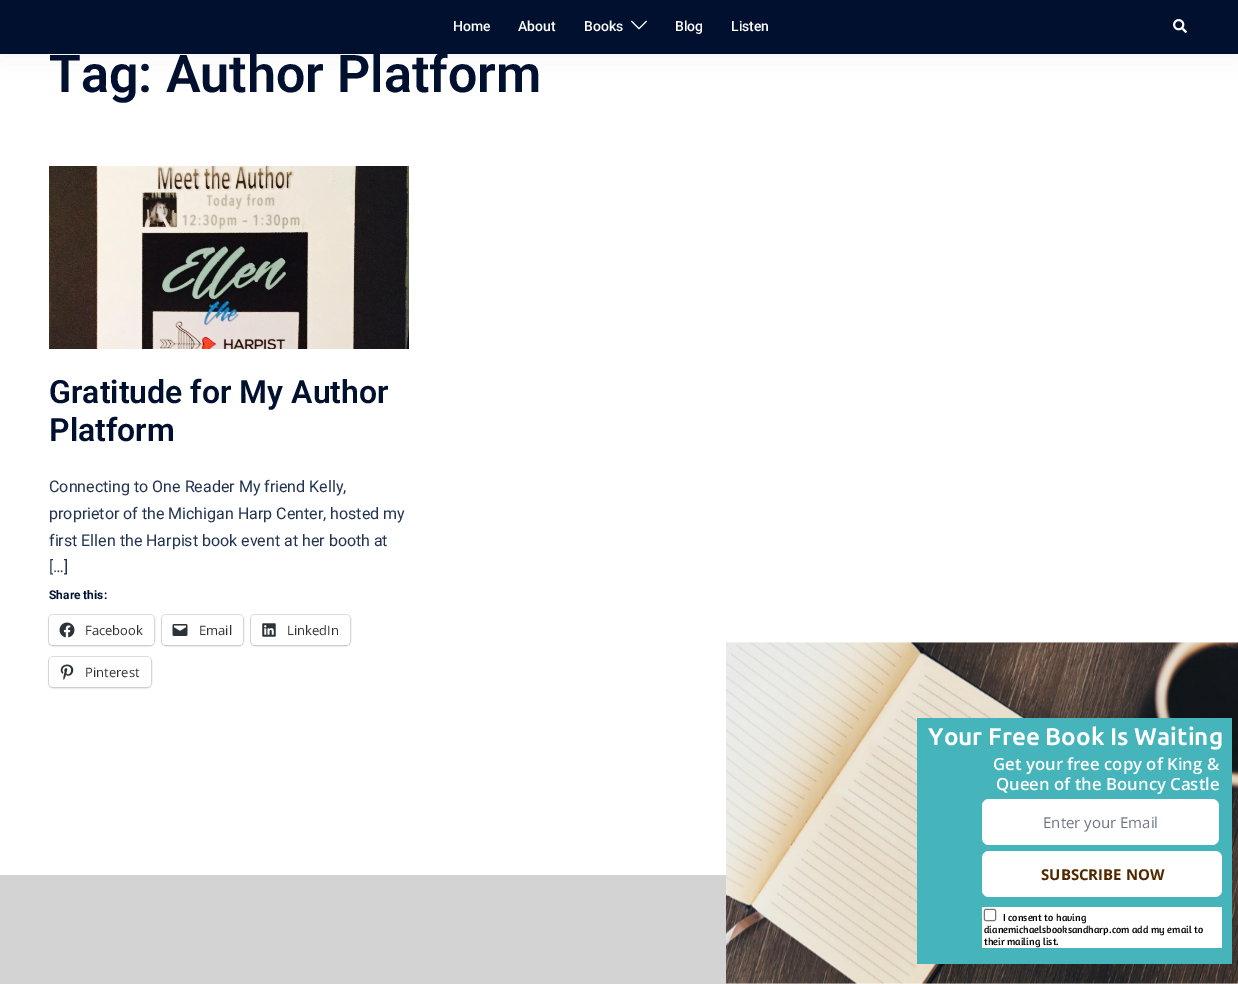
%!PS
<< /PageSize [1238 984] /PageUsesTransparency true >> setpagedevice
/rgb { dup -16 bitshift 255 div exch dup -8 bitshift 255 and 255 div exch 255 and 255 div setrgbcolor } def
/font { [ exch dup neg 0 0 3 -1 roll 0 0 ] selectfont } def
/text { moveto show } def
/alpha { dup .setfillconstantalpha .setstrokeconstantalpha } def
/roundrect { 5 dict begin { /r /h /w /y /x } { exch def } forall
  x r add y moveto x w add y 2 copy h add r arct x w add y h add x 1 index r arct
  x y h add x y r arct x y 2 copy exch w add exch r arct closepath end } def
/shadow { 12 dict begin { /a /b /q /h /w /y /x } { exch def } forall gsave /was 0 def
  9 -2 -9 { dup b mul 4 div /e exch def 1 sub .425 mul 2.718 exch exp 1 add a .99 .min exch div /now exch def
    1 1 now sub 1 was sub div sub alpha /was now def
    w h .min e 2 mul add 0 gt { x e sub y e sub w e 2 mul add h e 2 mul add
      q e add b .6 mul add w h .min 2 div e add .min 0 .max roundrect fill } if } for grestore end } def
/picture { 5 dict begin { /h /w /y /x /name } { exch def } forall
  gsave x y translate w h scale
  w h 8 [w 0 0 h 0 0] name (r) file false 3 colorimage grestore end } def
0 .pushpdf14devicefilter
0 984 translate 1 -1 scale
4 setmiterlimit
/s1 { /Roboto-Medium 14 font 16#FFFFFF rgb } def
/s2 { /Roboto-SemiBold 52 font 16#00102E rgb } def
/s3 { /Roboto-SemiBold 32 font 16#00102E rgb } def
/s4 { /Roboto-Regular 16 font 16#233452 rgb } def
/s5 { /Roboto-Bold 12 font 16#00102E rgb } def
/s6 { /OpenSans-Regular 13 font 16#2C3338 rgb } def
/s7 { /Ubuntu-Bold 24.25 font 16#FFFFFF rgb } def
/s8 { /OpenSans-SemiBold 16.75 font 16#FFFFFF rgb } def
/s9 { /OpenSans-Regular 15 font 16#6D7685 rgb } def
/s10 { /OpenSans-Bold 15 font 16#512700 rgb } def
/s11 { /Amaranth-Regular 10.25 font 16#000000 rgb } def
16#FFFFFF rgb
0 0 1238 984 rectfill
16#000000 rgb
0 0 1238 54 0 15 0.05 shadow
16#00102E rgb
0 0 1238 54 rectfill
s1
(Home) 453 31 text
(About) 518 31 text
(Books) 584 31 text
(pic1.raw) 631 20 16 10 picture
(Blog) 675 31 text
(Listen) 731 31 text
(pic2.raw) 1173 19 14 14 picture
s2
(Tag: Author Platform) 49 92 text
(pic3.raw) 49 166 360 183 picture
s3
(Gratitude for My Author) 49 403 text
(Platform) 49 441 text
s4
(Connecting to One Reader My friend Kelly,) 49 492 text
(proprietor of the Michigan Harp Center, hosted my) 49 519 text
(first Ellen the Harpist book event at her booth at) 49 546 text
([…]) 49 572 text
s5
(Share this:) 49 599 text
16#E0E0E0 rgb
48.5 614.5 106 31 4.5 roundrect stroke
16#000000 rgb
49 616 105 30 4 1 0.12 shadow
16#FFFFFF rgb
49 615 105 30 4 roundrect fill
(pic4.raw) 59 622 16 16 picture
s6
(Facebook) 85 635 text
16#E0E0E0 rgb
161.5 614.5 82 31 4.5 roundrect stroke
16#000000 rgb
162 616 81 30 4 1 0.12 shadow
16#FFFFFF rgb
162 615 81 30 4 roundrect fill
(pic5.raw) 172 624 16 12 picture
s6
(Email) 199 635 text
16#E0E0E0 rgb
250.5 614.5 100 31 4.5 roundrect stroke
16#000000 rgb
251 616 99 30 4 1 0.12 shadow
16#FFFFFF rgb
251 615 99 30 4 roundrect fill
(pic6.raw) 262 623 14 14 picture
s6
(LinkedIn) 287 635 text
16#E0E0E0 rgb
48.5 656.5 103 31 4.5 roundrect stroke
16#000000 rgb
49 658 102 30 4 1 0.12 shadow
16#FFFFFF rgb
49 657 102 30 4 roundrect fill
(pic7.raw) 60 664 14 16 picture
s6
(Pinterest) 85 677 text
16#D3D3D3 rgb
0 875 726 109 rectfill
(pic8.raw) 726 642 512 342 picture
16#45B4BB rgb
917 718 315 246 rectfill
s7
(Your Free Book Is Waiting) 928 745 text
s8
(Get your free copy of King &) 993 770 text
(Queen of the Bouncy Castle) 996 790 text
982 799 237 46 7 roundrect fill
s9
(Enter your Email) 1043 828 text
16#FFFFFF rgb
982 851 240 46 7 roundrect fill
s10
(SUBSCRIBE NOW) 1041 880 text
16#FFFFFF rgb
984 909 238 39 rectfill
982 907 240 2 rectfill
982 907 2 41 rectfill
16#767676 rgb
0.9 setlinewidth
984.45 909.45 11.1 11.1 1.55 roundrect stroke
s11
(I consent to having) 1003 921 text
(dianemichaelsbooksandharp.com add my email to) 984 933 text
(their mailing list.) 984 945 text
.poppdf14devicefilter showpage
